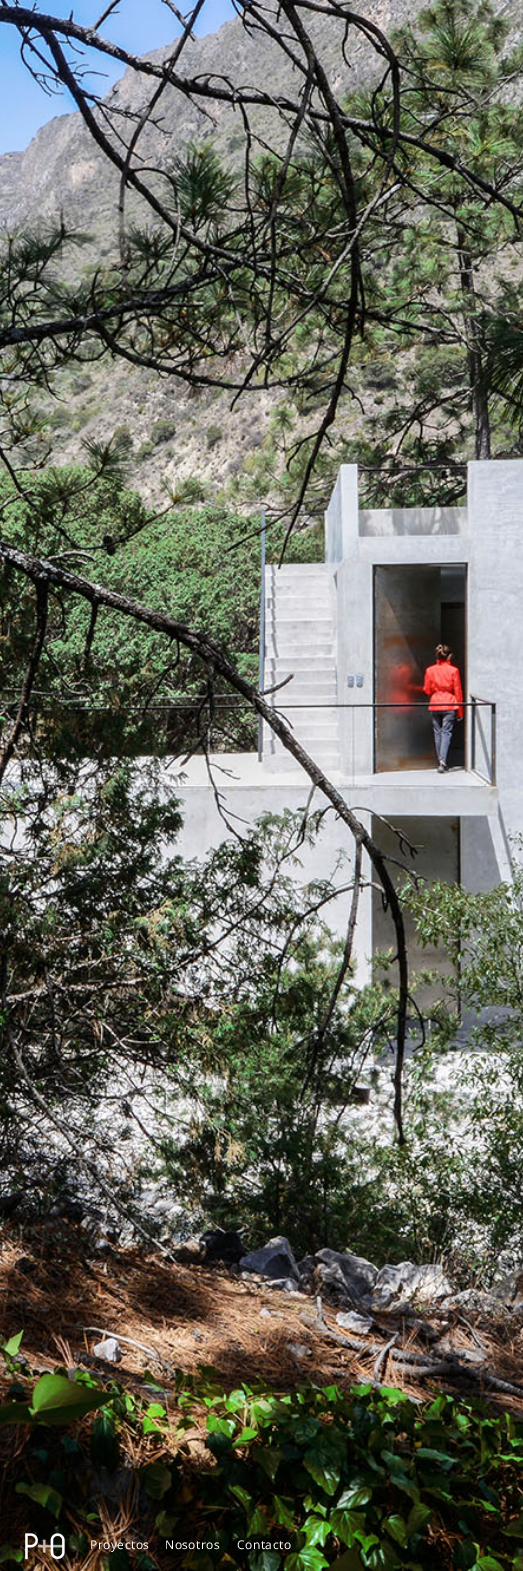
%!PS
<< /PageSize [523 1571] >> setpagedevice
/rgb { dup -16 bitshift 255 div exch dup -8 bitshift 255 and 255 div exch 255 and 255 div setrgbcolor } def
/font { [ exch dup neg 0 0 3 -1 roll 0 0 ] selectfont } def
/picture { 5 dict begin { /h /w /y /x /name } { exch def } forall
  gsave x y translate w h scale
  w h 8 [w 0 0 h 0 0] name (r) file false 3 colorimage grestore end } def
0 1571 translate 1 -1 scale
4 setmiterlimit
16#FFFFFF rgb
0 0 523 1571 rectfill
(pic1.raw) 0 0 523 1571 picture
(pic2.raw) 25 1533 40 27 picture
/OpenSans-Regular 12 font
90 1549 moveto 0.5 0 (Proyectos) ashow
165 1549 moveto 0.5 0 (Nosotros) ashow
237 1549 moveto 0.5 0 (Contacto) ashow
showpage
